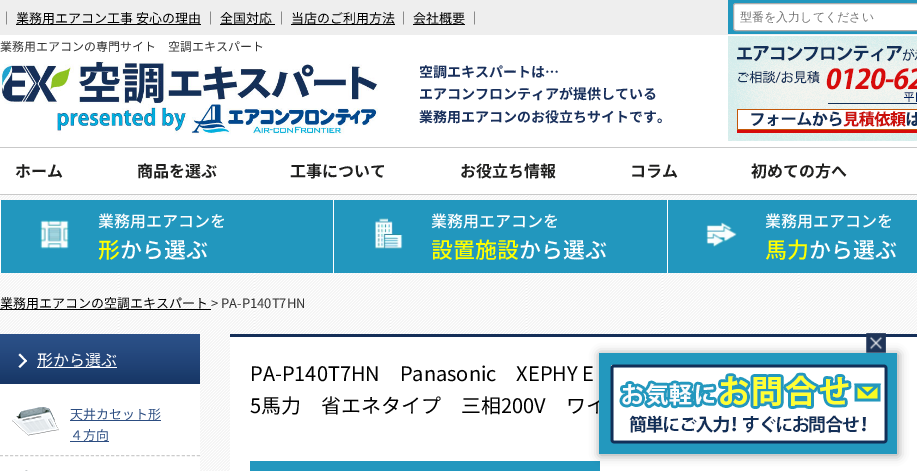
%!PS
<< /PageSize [917 471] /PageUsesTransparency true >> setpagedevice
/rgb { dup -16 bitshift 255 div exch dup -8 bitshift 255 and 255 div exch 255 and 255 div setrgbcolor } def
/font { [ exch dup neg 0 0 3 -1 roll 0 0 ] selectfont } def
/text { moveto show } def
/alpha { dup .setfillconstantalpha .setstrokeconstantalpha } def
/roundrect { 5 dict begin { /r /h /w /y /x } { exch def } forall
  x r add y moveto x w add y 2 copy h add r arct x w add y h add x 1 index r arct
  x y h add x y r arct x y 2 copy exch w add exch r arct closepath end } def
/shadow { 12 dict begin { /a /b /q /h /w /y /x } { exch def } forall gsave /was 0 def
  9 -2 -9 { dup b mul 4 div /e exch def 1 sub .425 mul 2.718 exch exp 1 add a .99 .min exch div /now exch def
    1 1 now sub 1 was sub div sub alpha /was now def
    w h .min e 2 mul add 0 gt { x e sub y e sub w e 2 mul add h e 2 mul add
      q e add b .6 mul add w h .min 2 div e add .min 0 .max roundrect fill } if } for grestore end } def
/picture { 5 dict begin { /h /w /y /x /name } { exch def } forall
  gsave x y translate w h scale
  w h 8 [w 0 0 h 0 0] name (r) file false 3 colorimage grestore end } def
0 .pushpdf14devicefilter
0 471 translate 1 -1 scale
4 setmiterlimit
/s1 { /NotoSansJP-Regular 13 font 16#333333 rgb } def
/s2 { /NotoSansJP-Regular 13 font 16#000000 rgb } def
/s3 { /WenQuanYiZenHei-Medium 12 font 16#757575 rgb } def
/s4 { /NotoSansJP-Regular 12 font 16#333333 rgb } def
/s5 { /NotoSansJP-Bold 14 font 16#182F5B rgb } def
/s6 { /NotoSansJP-Bold 16 font 16#1F1F1E rgb } def
/s7 { /NotoSansJP-Medium 16 font 16#FFFFFF rgb } def
/s8 { /NotoSansJP-Medium 22 font 16#FFFF00 rgb } def
/s9 { /NotoSansJP-Medium 22 font 16#FFFFFF rgb } def
/s10 { /NotoSansJP-Regular 16 font 16#FFFFFF rgb } def
/s11 { /NotoSansJP-Regular 13 font 16#2C4D81 rgb } def
/s12 { /NotoSansJP-Regular 20 font 16#000000 rgb } def
16#FFFFFF rgb
0 0 917 471 rectfill
(pic1.raw) 0 195 917 276 picture
16#EEEEEE rgb
0 0 917 35 rectfill
s1
(｜) 0 23 text
16#000000 rgb
16 24 185 1 rectfill
(業務用エアコン工事 安心の理由) 16 23 text
s1
(｜) 204 23 text
s2
(全国対応) 220 23 text
220 24 55 1 rectfill
s1
(｜) 275 23 text
16#000000 rgb
291 24 104 1 rectfill
(当店のご利用方法) 291 23 text
s1
(｜) 397 23 text
s2
(会社概要) 413 23 text
413 24 52 1 rectfill
s1
(｜) 468 23 text
16#2297BE rgb
728 0 189 34 rectfill
16#FFFFFF rgb
733.5 3.5 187 27 2.5 roundrect gsave fill grestore
16#AAAAAA rgb
stroke
s3
(型番を入力してください) 740 21 text
s4
(業務用エアコンの専門サイト　空調エキスパート) 0 51 text
(pic2.raw) 0 60 378 75 picture
(pic3.raw) 728 36 189 105 picture
s5
(空調エキスパートは…) 419 77 text
(エアコンフロンティアが提供している) 419 99 text
(業務用エアコンのお役立ちサイトです。) 419 122 text
16#C9C9C9 rgb
0 147 917 1 rectfill
0 194 917 1 rectfill
s6
(ホーム) 15 177 text
(商品を選ぶ) 137 177 text
(工事について) 290 177 text
(お役立ち情報) 460 177 text
(コラム) 630 177 text
(初めての方へ) 751 177 text
16#2297BE rgb
1 200 916 73 rectfill
16#FFFFFF rgb
0 200 1 73 rectfill
(pic4.raw) 40 220 29 29 picture
s7
(業務用エアコンを) 98 227 text
s8
(形) 98 258 text
s9
(から選ぶ) 120 258 text
333 200 1 73 rectfill
(pic5.raw) 374 218 29 31 picture
s7
(業務用エアコンを) 431 227 text
s8
(設置施設) 431 258 text
s9
(から選ぶ) 519 258 text
667 200 1 73 rectfill
(pic6.raw) 706 222 32 25 picture
s7
(業務用エアコンを) 765 227 text
s8
(馬力) 765 258 text
s9
(から選ぶ) 809 258 text
16#000000 rgb
0 309 211 1 rectfill
s2
(業務用エアコンの空調エキスパート) 0 308 text
s1
(> PA-P140T7HN) 211 308 text
16#FFFFFF rgb
0 384 200 87 rectfill
(pic7.raw) 0 334 200 50 picture
20 353.5 moveto 27 361 lineto 25.5 362 lineto 18.5 355 lineto closepath fill
25.5 359.5 moveto 27 361 lineto 20 368 lineto 18.5 366.5 lineto closepath fill
37 367 80 1 rectfill
s10
(形から選ぶ) 37 366 text
16#CCCCCC rgb
[3 2.05] 0 setdash
0 455.5 moveto 200 455.5 lineto stroke
(pic8.raw) 12 407 47 29 picture
16#2C4D81 rgb
70 420 91 1 rectfill
s11
(天井カセット形) 70 419 text
(４方向) 70 440 text
70 441 39 1 rectfill
(pic9.raw) 25 470 3 1 picture
16#FFFFFF rgb
230 337 687 134 rectfill
16#152F58 rgb
230 334 687 3 rectfill
s12
(PA-P140T7HN　Panasonic　XEPHY E) 250 381 text
(5馬力　省エネタイプ　三相200V　ワイ) 250 413 text
16#2297BE rgb
250 461 350 10 rectfill
16#000000 rgb
600 354 298 101 0 5 0.4 shadow
(pic10.raw) 599 353 298 101 picture
(pic11.raw) 866 333 20 20 picture
.poppdf14devicefilter showpage
